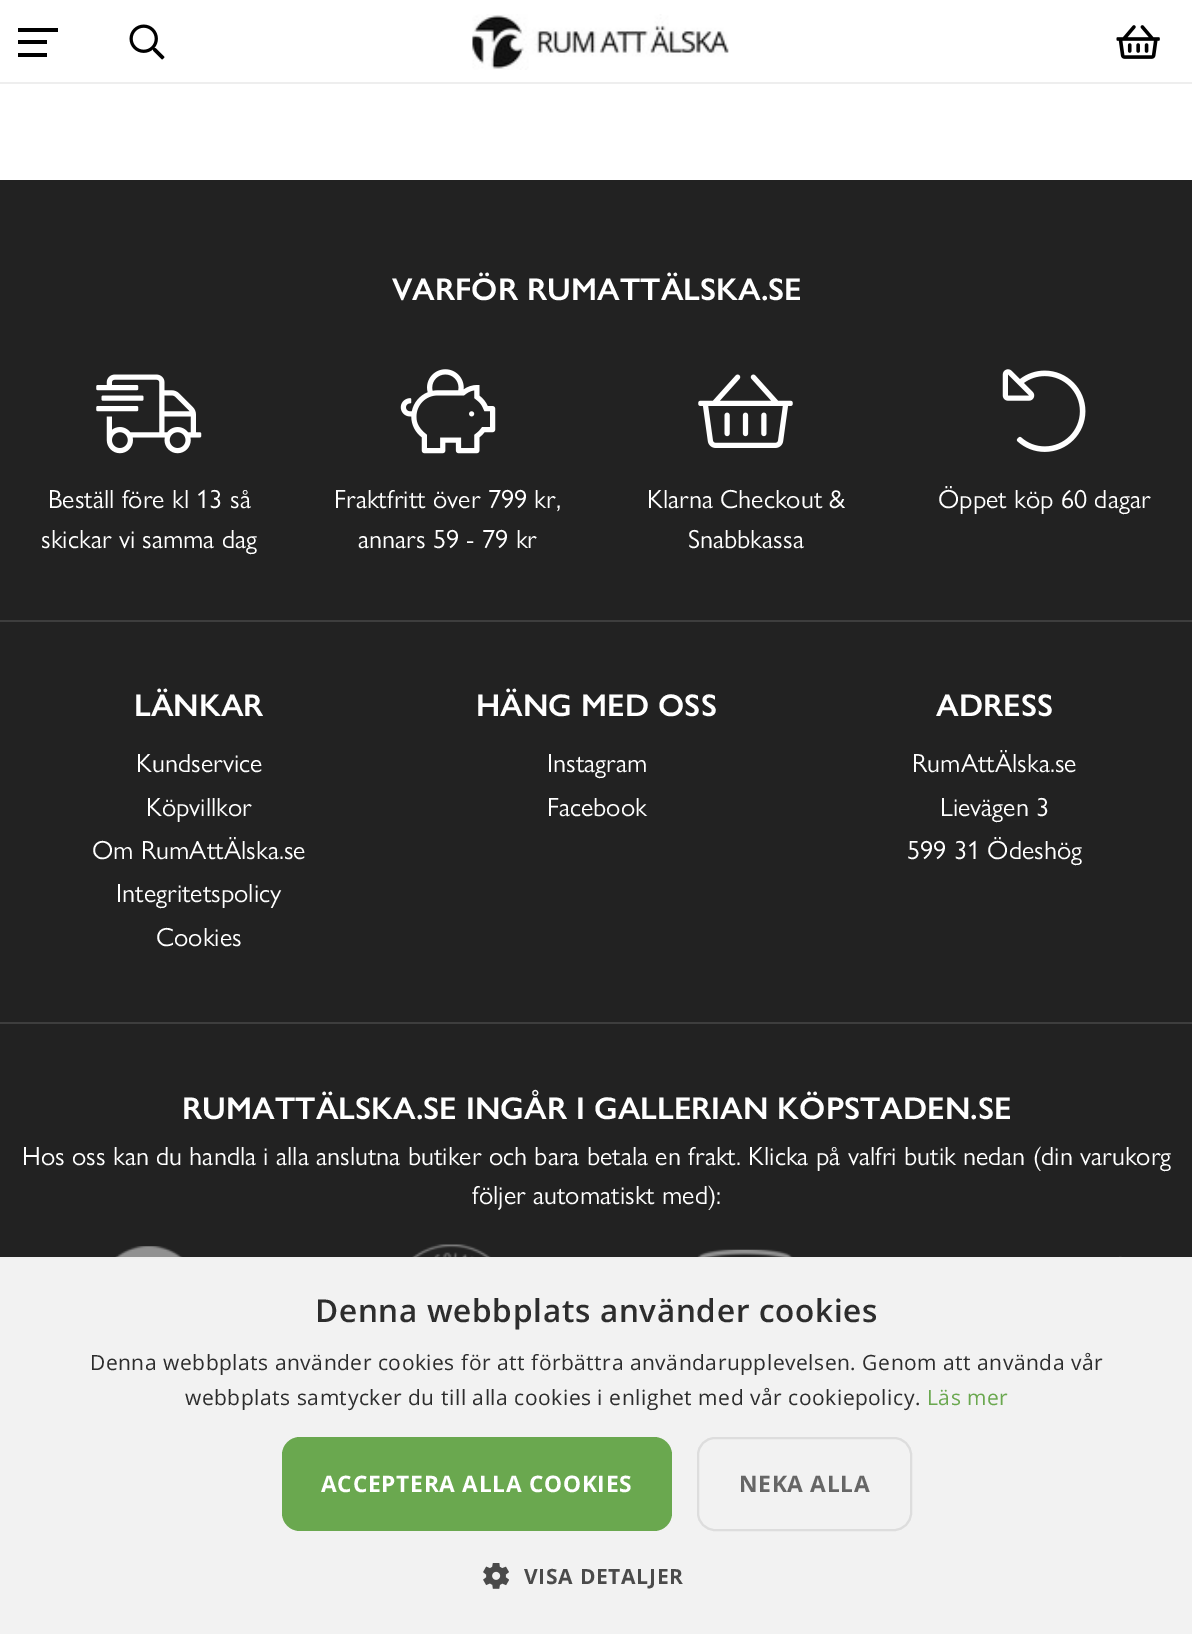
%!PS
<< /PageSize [1192 1634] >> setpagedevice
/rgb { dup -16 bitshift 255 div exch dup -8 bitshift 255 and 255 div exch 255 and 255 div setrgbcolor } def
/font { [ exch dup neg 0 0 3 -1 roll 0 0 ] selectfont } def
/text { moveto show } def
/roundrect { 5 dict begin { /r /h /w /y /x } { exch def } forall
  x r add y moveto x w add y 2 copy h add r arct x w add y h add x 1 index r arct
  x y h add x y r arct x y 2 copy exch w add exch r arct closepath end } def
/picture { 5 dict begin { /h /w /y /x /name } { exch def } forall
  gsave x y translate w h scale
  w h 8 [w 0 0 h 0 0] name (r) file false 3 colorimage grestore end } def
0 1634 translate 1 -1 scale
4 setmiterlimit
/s1 { /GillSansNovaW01-SemiBold 31.5 font 16#FFFFFF rgb } def
/s2 { /GillSansNovaW01-Regular 26.25 font 16#FFFFFF rgb } def
16#FFFFFF rgb
0 0 1192 1634 rectfill
16#EEEEEE rgb
0 82 1192 2 rectfill
16#000000 rgb
18 40 29 4 rectfill
18 28 40 4 rectfill
18 53 29 4 rectfill
(pic1.raw) 129 24 36 36 picture
(pic2.raw) 472 14 257 56 picture
(pic3.raw) 1116 25 44 34 picture
16#222222 rgb
0 180 1192 1077 rectfill
s1
(VARFÖR RUMATTÄLSKA.SE) 392 300 text
(pic4.raw) 96 374 106 80 picture
s2
(Beställ före kl 13 så) 48 508 text
(skickar vi samma dag) 41 548 text
(pic5.raw) 400 369 96 85 picture
(Fraktfritt över 799 kr,) 334 508 text
(annars 59 - 79 kr) 358 548 text
(pic6.raw) 698 374 95 74 picture
(Klarna Checkout &) 647 508 text
(Snabbkassa) 688 548 text
(pic7.raw) 1002 369 84 83 picture
(Öppet köp 60 dagar) 938 508 text
16#3E3E3E rgb
0 620 1192 2 rectfill
s1
(LÄNKAR) 134 716 text
s2
(Kundservice) 136 772 text
(Köpvillkor) 146 816 text
(Om RumAttÄlska.se) 92 859 text
(Integritetspolicy) 116 902 text
(Cookies) 156 946 text
s1
(HÄNG MED OSS) 476 716 text
s2
(Instagram) 547 772 text
(Facebook) 547 816 text
s1
(ADRESS) 936 716 text
s2
(RumAttÄlska.se) 912 772 text
(Lievägen 3) 940 816 text
(599 31 Ödeshög) 907 859 text
16#3E3E3E rgb
0 1022 1192 2 rectfill
s1
(RUMATTÄLSKA.SE INGÅR I GALLERIAN KÖPSTADEN.SE) 182 1119 text
s2
(Hos oss kan du handla i alla anslutna butiker och bara betala en frakt. Klicka på valfri butik nedan \(din varukorg) 22 1165 text
(följer automatiskt med\):) 472 1204 text
(pic8.raw) 115 1246 68 11 picture
(pic9.raw) 412 1244 79 13 picture
(pic10.raw) 697 1249 96 8 picture
(pic11.raw) 1119 1256 3 1 picture
16#F2F2F2 rgb
0 1259 1192 375 rectfill
16#F0F0F0 rgb
0 1257 1192 2 rectfill
/OpenSans-SemiBold 31.5 font
16#2D2D2D rgb
315 1322 moveto 0.7 0 (Denna webbplats använder cookies) ashow
/OpenSans-Regular 21 font
90 1370 moveto 0.53 0 (Denna webbplats använder cookies för att förbättra användarupplevelsen. Genom att använda vår) ashow
185 1405 moveto 0.53 0 (webbplats samtycker du till alla cookies i enlighet med vår cookiepolicy.) ashow
16#6AA84F rgb
927 1405 moveto 0.53 0 (Läs mer) ashow
282 1437 390 94 18 roundrect fill
/OpenSans-Bold 22.75 font
16#FFFFFF rgb
321 1492 moveto 0.7 0 (ACCEPTERA ALLA COOKIES) ashow
16#DDDDDD rgb
2 setlinewidth
698 1438 213 92 17 roundrect stroke
16#666666 rgb
739 1492 moveto 0.7 0 (NEKA ALLA) ashow
(pic12.raw) 483 1563 26 26 picture
/OpenSans-Bold 21 font
16#4B4B4B rgb
524 1584 moveto 0.7 0 (VISA DETALJER) ashow
showpage
